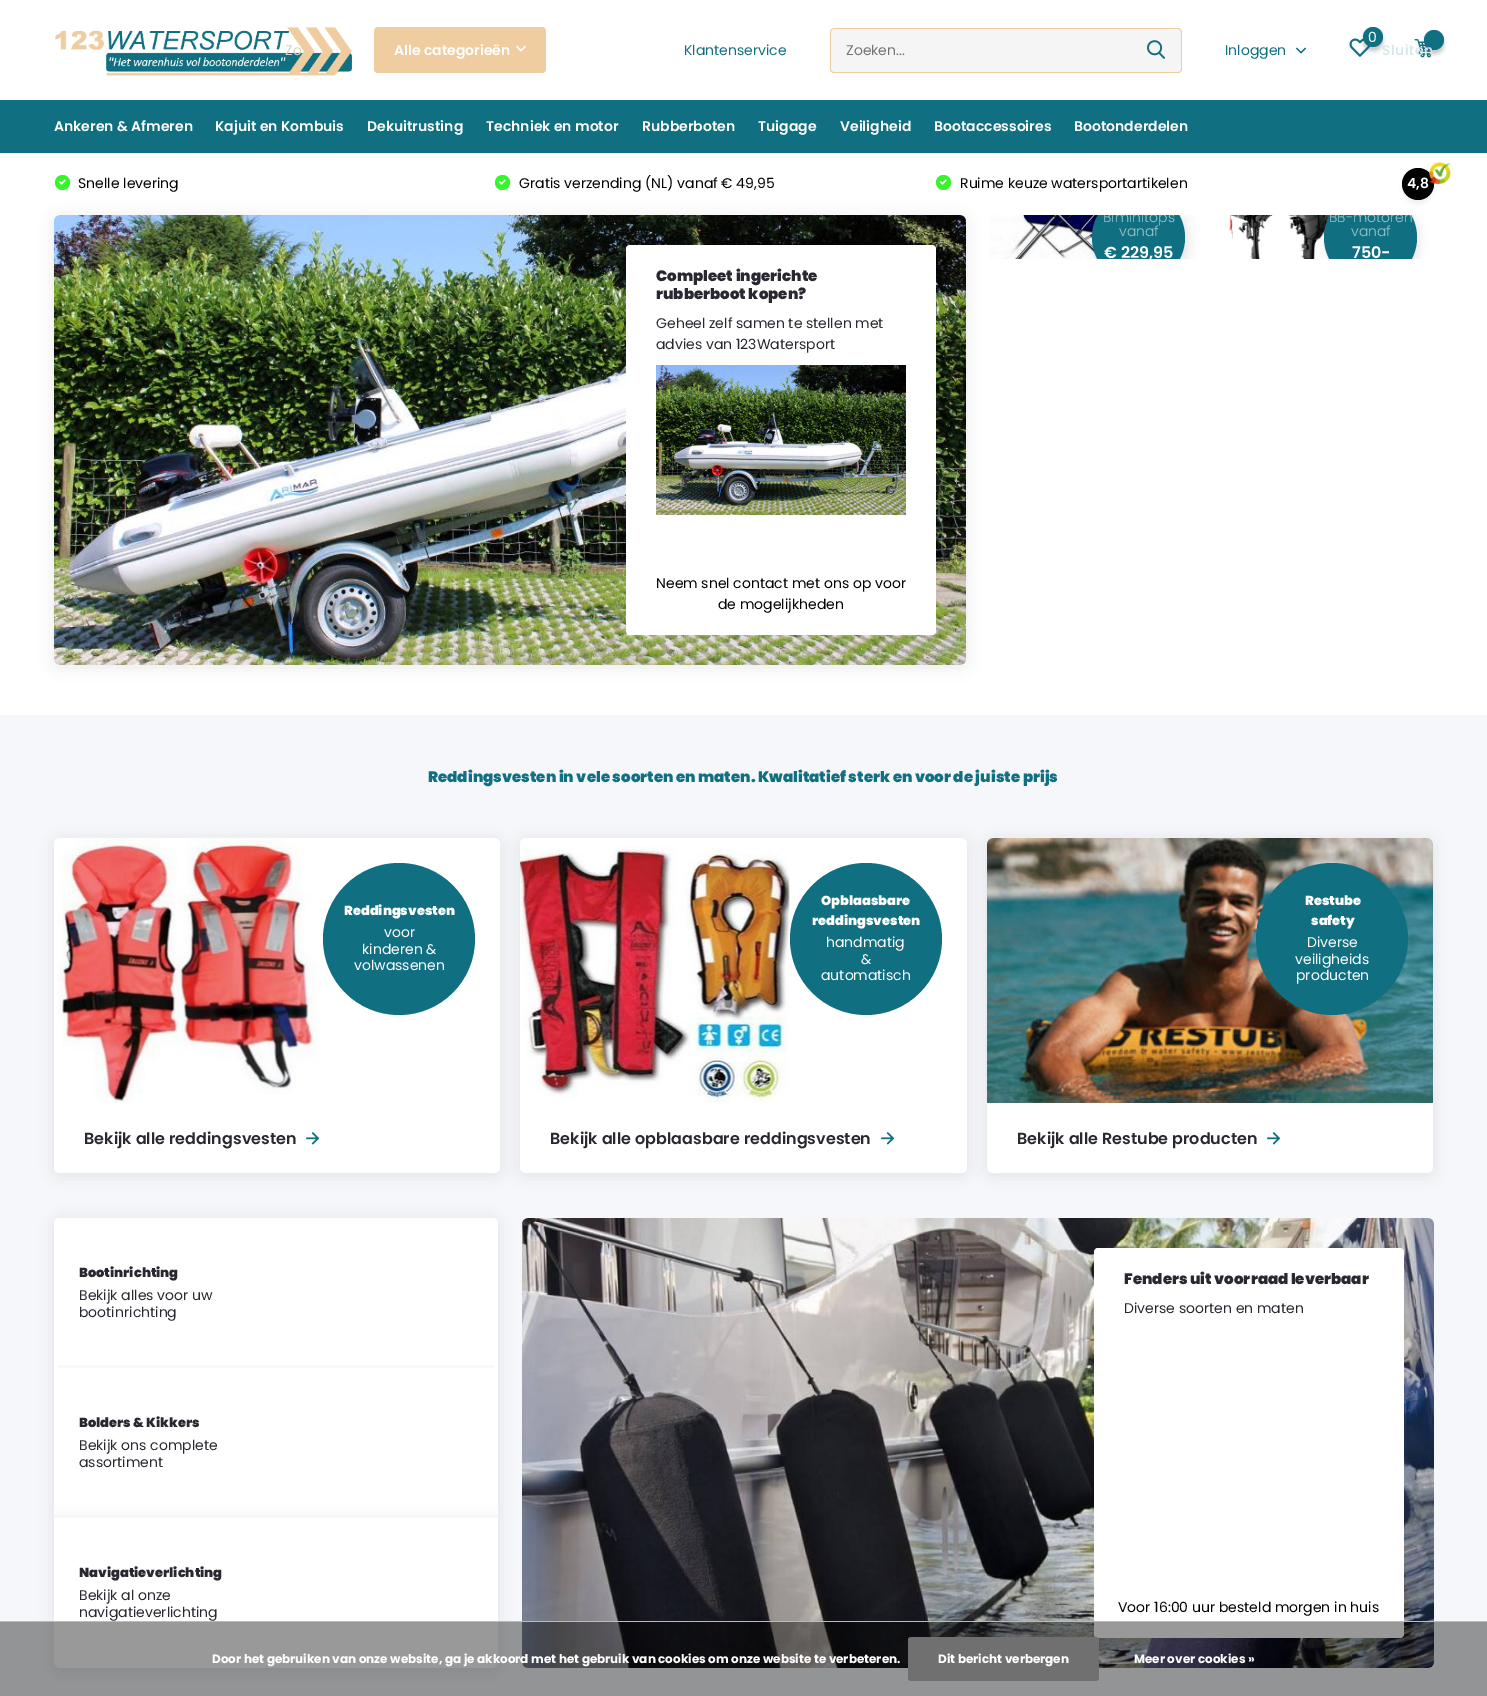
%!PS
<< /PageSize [1487 1696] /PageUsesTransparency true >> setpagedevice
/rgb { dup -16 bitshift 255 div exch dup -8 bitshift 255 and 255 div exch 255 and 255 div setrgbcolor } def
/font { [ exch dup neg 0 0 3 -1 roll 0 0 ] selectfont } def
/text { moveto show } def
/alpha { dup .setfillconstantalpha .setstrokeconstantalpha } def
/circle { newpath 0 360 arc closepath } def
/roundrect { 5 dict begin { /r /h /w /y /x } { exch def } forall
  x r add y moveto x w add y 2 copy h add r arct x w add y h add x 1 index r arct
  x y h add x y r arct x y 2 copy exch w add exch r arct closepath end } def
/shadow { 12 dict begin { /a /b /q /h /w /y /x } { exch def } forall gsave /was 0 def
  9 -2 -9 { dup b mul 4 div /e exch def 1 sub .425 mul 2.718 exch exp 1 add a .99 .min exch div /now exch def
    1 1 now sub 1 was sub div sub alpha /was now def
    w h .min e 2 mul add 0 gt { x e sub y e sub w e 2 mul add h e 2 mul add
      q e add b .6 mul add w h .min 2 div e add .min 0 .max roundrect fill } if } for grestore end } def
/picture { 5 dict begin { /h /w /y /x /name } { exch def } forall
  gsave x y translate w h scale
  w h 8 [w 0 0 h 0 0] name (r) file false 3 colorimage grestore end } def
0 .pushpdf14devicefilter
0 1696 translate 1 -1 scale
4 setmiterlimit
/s1 { /Poppins-SemiBold 14 font 16#FFFFFF rgb } def
/s2 { /Poppins-Regular 14 font 16#FFFFFF rgb } def
/s3 { /Poppins-Regular 14 font 16#107082 rgb } def
/s4 { /Poppins-Regular 14 font 16#757575 rgb } def
/s5 { /Poppins-Regular 14 font 16#D4D4C4 rgb } def
/s6 { /Poppins-Regular 14 font 16#000000 rgb } def
/s7 { /Poppins-Light 14 font 16#9FC6CD rgb } def
/s8 { /Poppins-SemiBold 16 font 16#FFFFFF rgb } def
/s9 { /Poppins-Black 15 font 16#282830 rgb } def
/s10 { /Poppins-Regular 14 font 16#282830 rgb } def
/s11 { /Poppins-Black 15 font 16#107082 rgb } def
/s12 { /Poppins-Black 13 font 16#FFFFFF rgb } def
/s13 { /Poppins-SemiBold 16 font 16#282830 rgb } def
/s14 { /Poppins-Black 13 font 16#282830 rgb } def
/s15 { /Poppins-Bold 12 font 16#FFFFFF rgb } def
16#FFFFFF rgb
0 0 1487 1696 rectfill
(pic1.raw) 55 27 297 49 picture
16#F0CDA1 rgb
374 27 172 46 4 roundrect fill
s1
(Alle categorieën) 394 55 text
(pic2.raw) 516 45 10 7 picture
(pic3.raw) 1349 38 21 19 picture
16#282830 rgb
1363 31 20 20 10 2 0.25 shadow
16#107082 rgb
1373 37 10 circle fill
s2
(0) 1368 42 text
(pic4.raw) 1414 39 19 19 picture
16#282830 rgb
1424 34 20 20 10 2 0.25 shadow
16#107082 rgb
1434 40 10 circle fill
(Klantenservice) 684 55 text
16#F5F5F5 rgb
834 28 moveto 1132 28 lineto 1132 73 lineto 834 73 lineto 832 73 830 71 830 69 curveto 830 32 lineto 830 30 832 28 834 28 curveto closepath fill
16#F0CDA1 rgb
834 28 moveto 1132 28 lineto 1132 73 lineto 834 73 lineto 832 73 830 71 830 69 curveto 830 32 lineto 830 30 832 28 834 28 curveto closepath 834 29 moveto 1132 29 lineto 1132 72 lineto 834 72 lineto 832 72 831 71 831 69 curveto 831 32 lineto 831 30 832 29 834 29 curveto closepath eofill
s4
(Zoeken...) 846 55 text
16#F5F5F5 rgb
1132 28 moveto 1178 28 lineto 1180 28 1182 30 1182 32 curveto 1182 69 lineto 1182 71 1180 73 1178 73 curveto 1132 73 lineto closepath fill
16#F0CDA1 rgb
1132 28 moveto 1178 28 lineto 1180 28 1182 30 1182 32 curveto 1182 69 lineto 1182 71 1180 73 1178 73 curveto 1132 73 lineto closepath 1132 29 moveto 1178 29 lineto 1180 29 1181 30 1181 32 curveto 1181 69 lineto 1181 71 1180 72 1178 72 curveto 1132 72 lineto closepath eofill
(pic5.raw) 1147 40 19 19 picture
s3
(Inloggen) 1225 55 text
(pic6.raw) 1296 47 10 7 picture
s5
(Zo) 285 55 text
/Poppins-Medium 14 font
16#D5E5E8 rgb
1382 55 moveto 0.5 0 (Sluiten) ashow
16#107082 rgb
0 100 1487 53 rectfill
s1
(Ankeren & Afmeren) 54 131 text
(Kajuit en Kombuis) 215 131 text
(Dekuitrusting) 367 131 text
(Techniek en motor) 486 131 text
(Rubberboten) 642 131 text
(Tuigage) 758 131 text
(Veiligheid) 840 131 text
(Bootaccessoires) 934 131 text
(Bootonderdelen) 1074 131 text
16#35F52B rgb
62.5 182.5 7.5 circle fill
(pic7.raw) 58 179 8 6 picture
s6
(Snelle levering) 78 188 text
16#35F52B rgb
502.5 182.5 7.5 circle fill
(pic7.raw) 498 179 8 6 picture
s6
(Gratis verzending \(NL\) vanaf € 49,95) 519 188 text
16#35F52B rgb
943.5 182.5 7.5 circle fill
(pic7.raw) 939 179 8 6 picture
s6
(Ruime keuze watersportartikelen) 960 188 text
1402 172 32 32 16 2 0.06 shadow
1418 184 16 circle fill
s1
(4,8) 1407 188 text
(pic8.raw) 1429 162 22 22 picture
(pic9.raw) 990 215 205 44 picture
gsave
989 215 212 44 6 roundrect clip newpath
16#000000 rgb
1094 195 93 93 46.5 5 0.1 shadow
grestore
gsave
989 215 212 44 6 roundrect clip newpath
16#107082 rgb
1138.5 237.5 46.5 circle fill
s7
(Biminitops) 1103 222 text
grestore
s7
(vanaf) 1119 236 text
gsave
989 215 212 44 6 roundrect clip newpath
s8
(€ 229,95) 1104 258 text
grestore
(pic10.raw) 1228 215 102 44 picture
gsave
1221 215 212 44 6 roundrect clip newpath
16#000000 rgb
1326 195 93 93 46.5 5 0.1 shadow
grestore
gsave
1221 215 212 44 6 roundrect clip newpath
16#107082 rgb
1370.5 237.5 46.5 circle fill
s7
(BB-motoren) 1329 222 text
grestore
(vanaf) 1351 236 text
s8
(750-) 1352 258 text
16#000000 rgb
54 217 912 450 6 7.5 0.08 shadow
(pic11.raw) 54 215 912 450 picture
16#FFFFFF rgb
626 245 310 390 4 roundrect fill
s9
(Compleet ingerichte) 656 281 text
(rubberboot kopen?) 656 299 text
s10
(Geheel zelf samen te stellen met) 656 328 text
(advies van 123Watersport) 656 349 text
(pic12.raw) 656 365 250 150 picture
s6
(Neem snel contact met ons op voor) 656 588 text
(de mogelijkheden) 718 609 text
16#F5F7FA rgb
0 715 1487 981 rectfill
s11
(Reddingsvesten in vele soorten en maten. Kwalitatief sterk en voor de juiste prijs) 428 782 text
16#000000 rgb
54 840 446 335 6 7.5 0.08 shadow
16#FFFFFF rgb
54 838 446 335 6 roundrect fill
(pic13.raw) 57 838 263 265 picture
16#107082 rgb
399 939 76 circle fill
s12
(Reddingsvesten) 344 915 text
s2
(voor) 384 937 text
(kinderen &) 362 954 text
(volwassenen) 354 970 text
54 1103 moveto 500 1103 lineto 500 1167 lineto 500 1170.5 497.5 1173 494 1173 curveto 60 1173 lineto 56.5 1173 54 1170.5 54 1167 curveto closepath fill
s13
(Bekijk alle reddingsvesten) 84 1144 text
(pic14.raw) 306 1132 13 13 picture
16#000000 rgb
520 840 447 335 6 7.5 0.08 shadow
16#FFFFFF rgb
520 838 447 335 6 roundrect fill
(pic15.raw) 520 846 270 257 picture
16#107082 rgb
866 939 76 circle fill
s12
(Opblaasbare) 821 905 text
(reddingsvesten) 812 925 text
s2
(handmatig) 826 947 text
(&) 861 964 text
(automatisch) 821 980 text
520 1103 moveto 967 1103 lineto 967 1167 lineto 967 1170.5 964.5 1173 961 1173 curveto 526 1173 lineto 522.5 1173 520 1170.5 520 1167 curveto closepath fill
s13
(Bekijk alle opblaasbare reddingsvesten) 550 1144 text
(pic14.raw) 881 1132 13 13 picture
16#000000 rgb
987 840 446 335 6 7.5 0.08 shadow
(pic16.raw) 987 838 446 265 picture
16#107082 rgb
1332 939 76 circle fill
s12
(Restube) 1305 905 text
(safety) 1311 925 text
s2
(Diverse) 1307 947 text
(veiligheids) 1295 964 text
(producten) 1296 980 text
987 1103 moveto 1433 1103 lineto 1433 1167 lineto 1433 1170.5 1430.5 1173 1427 1173 curveto 993 1173 lineto 989.5 1173 987 1170.5 987 1167 curveto closepath fill
s13
(Bekijk alle Restube producten) 1017 1144 text
(pic14.raw) 1267 1132 13 13 picture
16#000000 rgb
54 1220 444 450 6 7.5 0.08 shadow
16#FFFFFF rgb
54 1218 444 450 6 roundrect fill
60 1218 moveto 492 1218 lineto 495.5 1218 498 1220.5 498 1224 curveto 498 1368 lineto 54 1368 lineto 54 1224 lineto 54 1220.5 56.5 1218 60 1218 curveto closepath fill
s14
(Bootinrichting) 79 1277 text
s10
(Bekijk alles voor uw) 79 1300 text
(bootinrichting) 79 1317 text
gsave
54 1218 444 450 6 roundrect clip newpath
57 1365 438 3 rectclip
16#000000 rgb
54 1370 444 150 0 7.5 0.08 shadow
grestore
s14
(Bolders & Kikkers) 79 1427 text
s10
(Bekijk ons complete) 79 1450 text
(assortiment) 79 1467 text
gsave
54 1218 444 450 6 roundrect clip newpath
16#000000 rgb
54 1520 444 150 0 7.5 0.08 shadow
grestore
16#FFFFFF rgb
54 1518 moveto 498 1518 lineto 498 1662 lineto 498 1665.5 495.5 1668 492 1668 curveto 60 1668 lineto 56.5 1668 54 1665.5 54 1662 curveto closepath fill
s14
(Navigatieverlichting) 79 1577 text
s10
(Bekijk al onze) 79 1600 text
(navigatieverlichting) 79 1617 text
(pic17.raw) 522 1218 912 450 picture
16#FFFFFF rgb
1094 1248 310 390 4 roundrect fill
s9
(Fenders uit voorraad leverbaar) 1124 1284 text
s10
(Diverse soorten en maten) 1124 1313 text
s6
(Voor 16:00 uur besteld morgen in huis) 1118 1612 text
0.4 alpha
0 1622 1487 74 rectfill
1 alpha
16#BBBBBB rgb
0 1621 1487 1 rectfill
s15
(Door het gebruiken van onze website, ga je akkoord met het gebruik van cookies om onze website te verbeteren.) 212 1663 text
16#707070 rgb
908 1637 191 44 3 roundrect fill
s15
(Dit bericht verbergen) 938 1663 text
(Meer over cookies ») 1134 1663 text
.poppdf14devicefilter showpage
